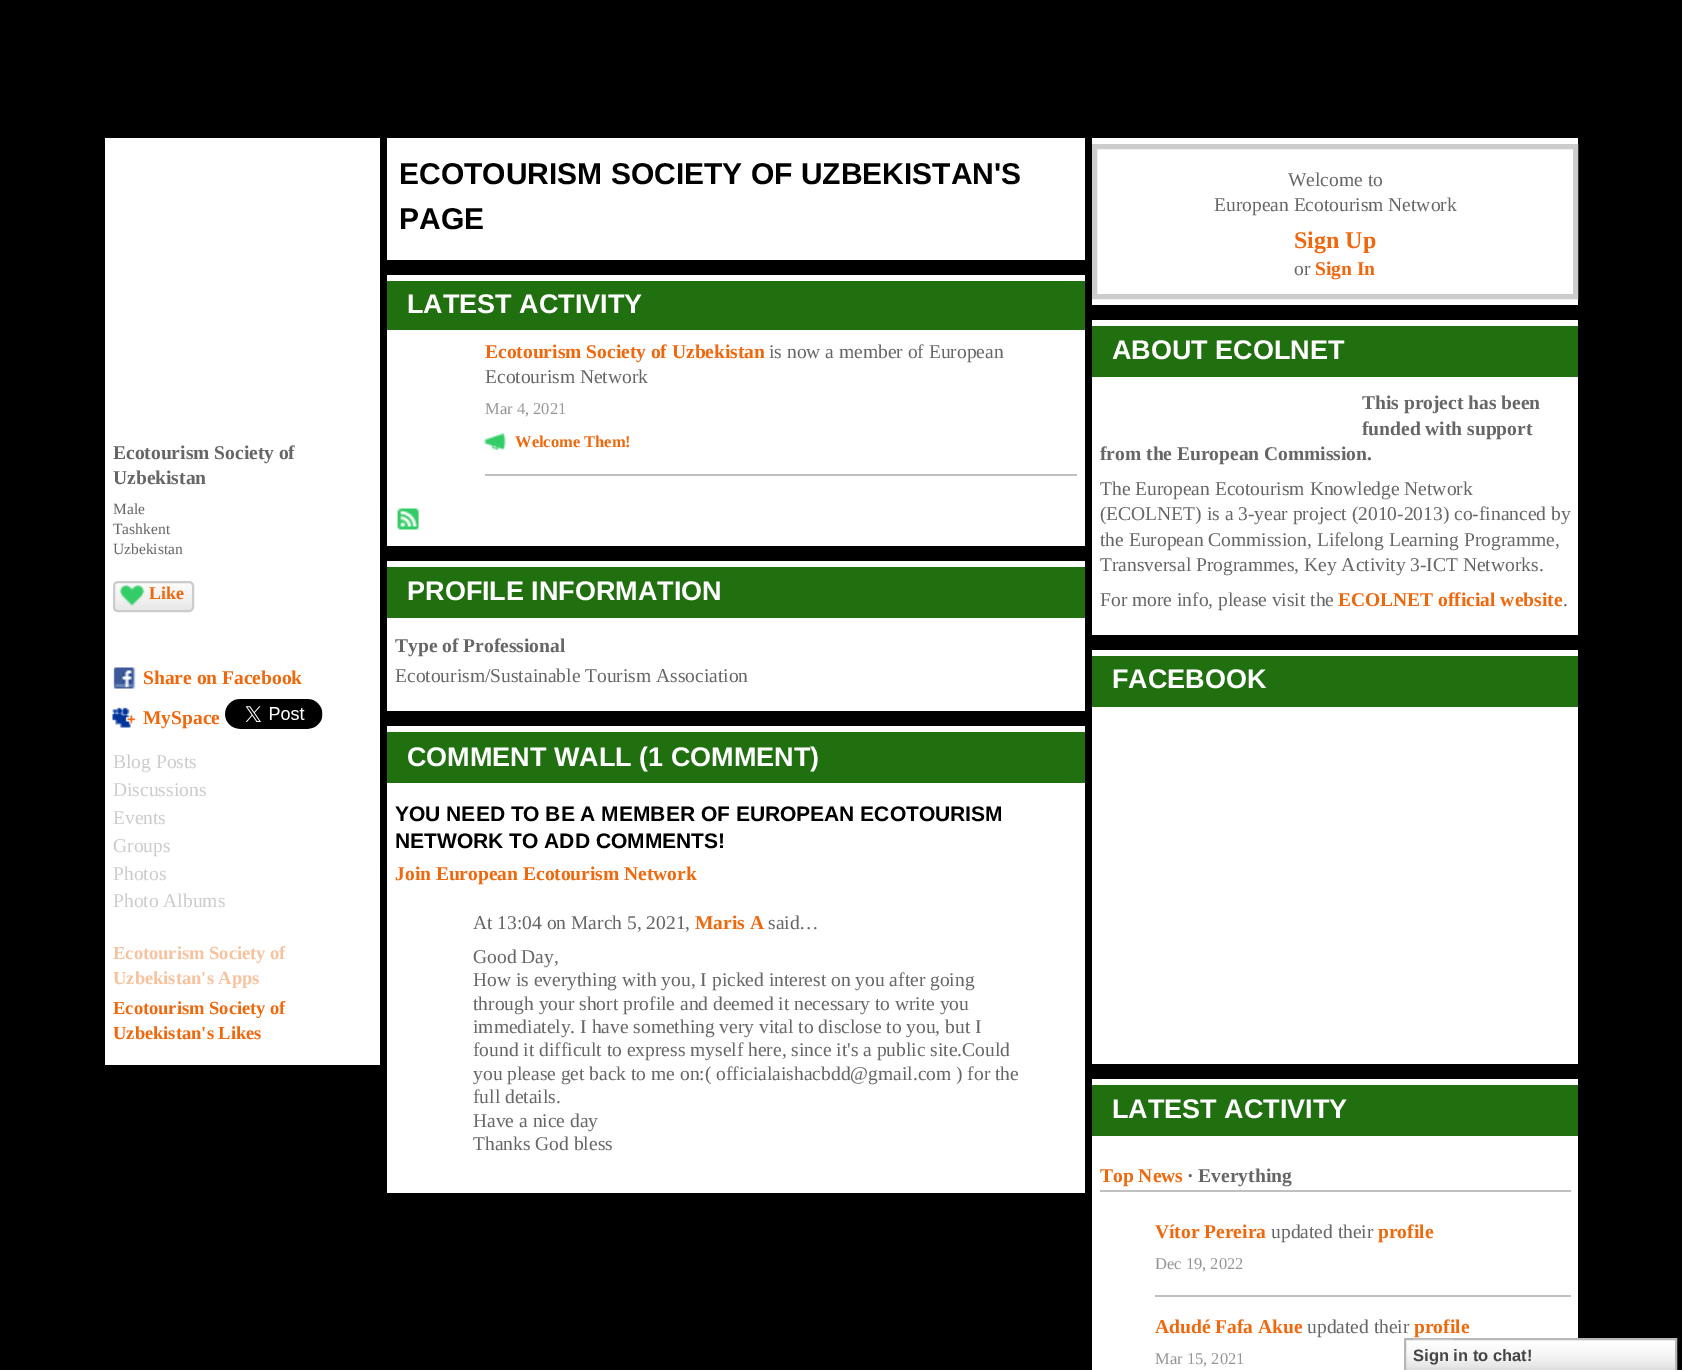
%!PS
<< /PageSize [1682 1370] >> setpagedevice
/rgb { dup -16 bitshift 255 div exch dup -8 bitshift 255 and 255 div exch 255 and 255 div setrgbcolor } def
/font { [ exch dup neg 0 0 3 -1 roll 0 0 ] selectfont } def
/text { moveto show } def
/roundrect { 5 dict begin { /r /h /w /y /x } { exch def } forall
  x r add y moveto x w add y 2 copy h add r arct x w add y h add x 1 index r arct
  x y h add x y r arct x y 2 copy exch w add exch r arct closepath end } def
/picture { 5 dict begin { /h /w /y /x /name } { exch def } forall
  gsave x y translate w h scale
  w h 8 [w 0 0 h 0 0] name (r) file false 3 colorimage grestore end } def
0 1370 translate 1 -1 scale
4 setmiterlimit
/s1 { /LiberationSerif-Bold 19.5 font 16#666666 rgb } def
/s2 { /LiberationSerif-Regular 15.5 font 16#666666 rgb } def
/s3 { /LiberationSerif-Bold 18 font 16#F0670C rgb } def
/s4 { /LiberationSerif-Bold 19.5 font 16#F0670C rgb } def
/s5 { /LiberationSerif-Regular 19.5 font 16#CCCCCC rgb } def
/s6 { /LiberationSerif-Bold 18.5 font 16#F9C29E rgb } def
/s7 { /LiberationSerif-Bold 18.5 font 16#F0670C rgb } def
/s8 { /LiberationSans-Bold 30 font 16#000000 rgb } def
/s9 { /LiberationSans-Bold 27 font 16#FFFFFF rgb } def
/s10 { /LiberationSerif-Regular 19.5 font 16#666666 rgb } def
/s11 { /LiberationSerif-Regular 16.5 font 16#959595 rgb } def
/s12 { /LiberationSerif-Bold 16.5 font 16#F0670C rgb } def
/s13 { /LiberationSans-Bold 21 font 16#000000 rgb } def
/s14 { /LiberationSerif-Bold 24 font 16#F0670C rgb } def
/s15 { /LiberationSans-Bold 16.5 font 16#454545 rgb } def
16#000000 rgb
0 0 1682 1370 rectfill
16#FFFFFF rgb
105 138 275 927 rectfill
s1
(Ecotourism Society of) 113 459 text
(Uzbekistan) 113 484 text
s2
(Male) 113 514 text
(Tashkent) 113 534 text
(Uzbekistan) 113 554 text
(pic1.raw) 112 583 82 29 picture
16#CCCCCC rgb
2 setlinewidth
114 582 79 29 4 roundrect stroke
(pic2.raw) 119 584 26 23 picture
s3
(Like) 149 599 text
(pic3.raw) 113 667 23 22 picture
s4
(Share on Facebook) 143 684 text
(pic4.raw) 112 707 24 21 picture
(MySpace) 143 724 text
(pic5.raw) 225 699 98 30 picture
s5
(Blog Posts) 113 768 text
(Discussions) 113 796 text
(Events) 113 824 text
(Groups) 113 852 text
(Photos) 113 880 text
(Photo Albums) 113 907 text
s6
(Ecotourism Society of) 113 959 text
(Uzbekistan's Apps) 113 984 text
s7
(Ecotourism Society of) 113 1014 text
(Uzbekistan's Likes) 113 1039 text
16#FFFFFF rgb
387 138 698 122 rectfill
s8
(ECOTOURISM SOCIETY OF UZBEKISTAN'S) 399 184 text
(PAGE) 399 229 text
16#FFFFFF rgb
387 275 698 271 rectfill
16#217010 rgb
387 281 698 49 rectfill
s9
(LATEST ACTIVITY) 407 313 text
16#C0C0C0 rgb
485 474 592 2 rectfill
s4
(Ecotourism Society of Uzbekistan) 485 358 text
s10
(is now a member of European) 769 358 text
(Ecotourism Network) 485 383 text
s11
(Mar 4, 2021) 485 414 text
(pic6.raw) 484 433 22 17 picture
s12
(Welcome Them!) 515 447 text
(pic7.raw) 397 508 22 22 picture
16#FFFFFF rgb
387 561 698 150 rectfill
16#217010 rgb
387 567 698 51 rectfill
s9
(PROFILE INFORMATION) 407 600 text
s1
(Type of Professional) 395 652 text
s10
(Ecotourism/Sustainable Tourism Association) 395 682 text
16#FFFFFF rgb
387 726 698 467 rectfill
16#217010 rgb
387 732 698 51 rectfill
s9
(COMMENT WALL \(1 COMMENT\)) 407 766 text
s13
(YOU NEED TO BE A MEMBER OF EUROPEAN ECOTOURISM) 395 821 text
(NETWORK TO ADD COMMENTS!) 395 848 text
s4
(Join European Ecotourism Network) 395 880 text
s10
(At 13:04 on March 5, 2021,) 473 929 text
s4
(Maris A) 695 929 text
s10
(said…) 768 929 text
(Good Day,) 473 963 text
(How is everything with you, I picked interest on you after going) 473 986 text
(through your short profile and deemed it necessary to write you) 473 1010 text
(immediately. I have something very vital to disclose to you, but I) 473 1033 text
(found it difficult to express myself here, since it's a public site.Could) 473 1056 text
gsave
473 938 552 225 rectclip
(you please get back to me on:\( officialaishacbdd@gmail.com \) for the) 473 1080 text
grestore
(full details.) 473 1103 text
(Have a nice day) 473 1127 text
gsave
473 938 552 225 rectclip
(Thanks God bless) 473 1150 text
grestore
16#FFFFFF rgb
1092 138 486 167 rectfill
16#CCCCCC rgb
5 setlinewidth
1094.5 146.5 481 150 rectstroke
s10
(Welcome to) 1288 186 text
(European Ecotourism Network) 1214 211 text
s14
(Sign Up) 1294 248 text
s10
(or) 1294 275 text
s4
(Sign In) 1315 275 text
16#FFFFFF rgb
1092 320 486 315 rectfill
16#217010 rgb
1092 326 486 51 rectfill
s9
(ABOUT ECOLNET) 1112 359 text
s1
(This project has been) 1362 409 text
(funded with support) 1362 435 text
(from the European Commission.) 1100 460 text
s10
(The European Ecotourism Knowledge Network) 1100 495 text
(\(ECOLNET\) is a 3-year project \(2010-2013\) co-financed by) 1100 520 text
(the European Commission, Lifelong Learning Programme,) 1100 546 text
(Transversal Programmes, Key Activity 3-ICT Networks.) 1100 571 text
(For more info, please visit the) 1100 606 text
s4
(ECOLNET official website) 1338 606 text
s10
(.) 1563 606 text
16#FFFFFF rgb
1092 650 486 414 rectfill
16#217010 rgb
1092 656 486 51 rectfill
s9
(FACEBOOK) 1112 688 text
1092 1079 486 291 rectfill
16#217010 rgb
1092 1085 486 51 rectfill
s9
(LATEST ACTIVITY) 1112 1118 text
16#C0C0C0 rgb
1100 1190 471 2 rectfill
s4
(Top News) 1100 1182 text
s1
(· Everything) 1187 1182 text
16#C0C0C0 rgb
1155 1295 416 2 rectfill
s4
(Vítor Pereira) 1155 1238 text
s10
(updated their) 1271 1238 text
s4
(profile) 1378 1238 text
s11
(Dec 19, 2022) 1155 1269 text
s4
(Adudé Fafa Akue) 1155 1333 text
s10
(updated their) 1307 1333 text
s4
(profile) 1414 1333 text
s11
(Mar 15, 2021) 1155 1364 text
(pic8.raw) 1406 1340 269 30 picture
16#B7B7B7 rgb
2 setlinewidth
1405 1339 271 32 rectstroke
(pic9.raw) 1413 1339 41 1 picture
s15
(Sign in to chat!) 1413 1361 text
showpage
